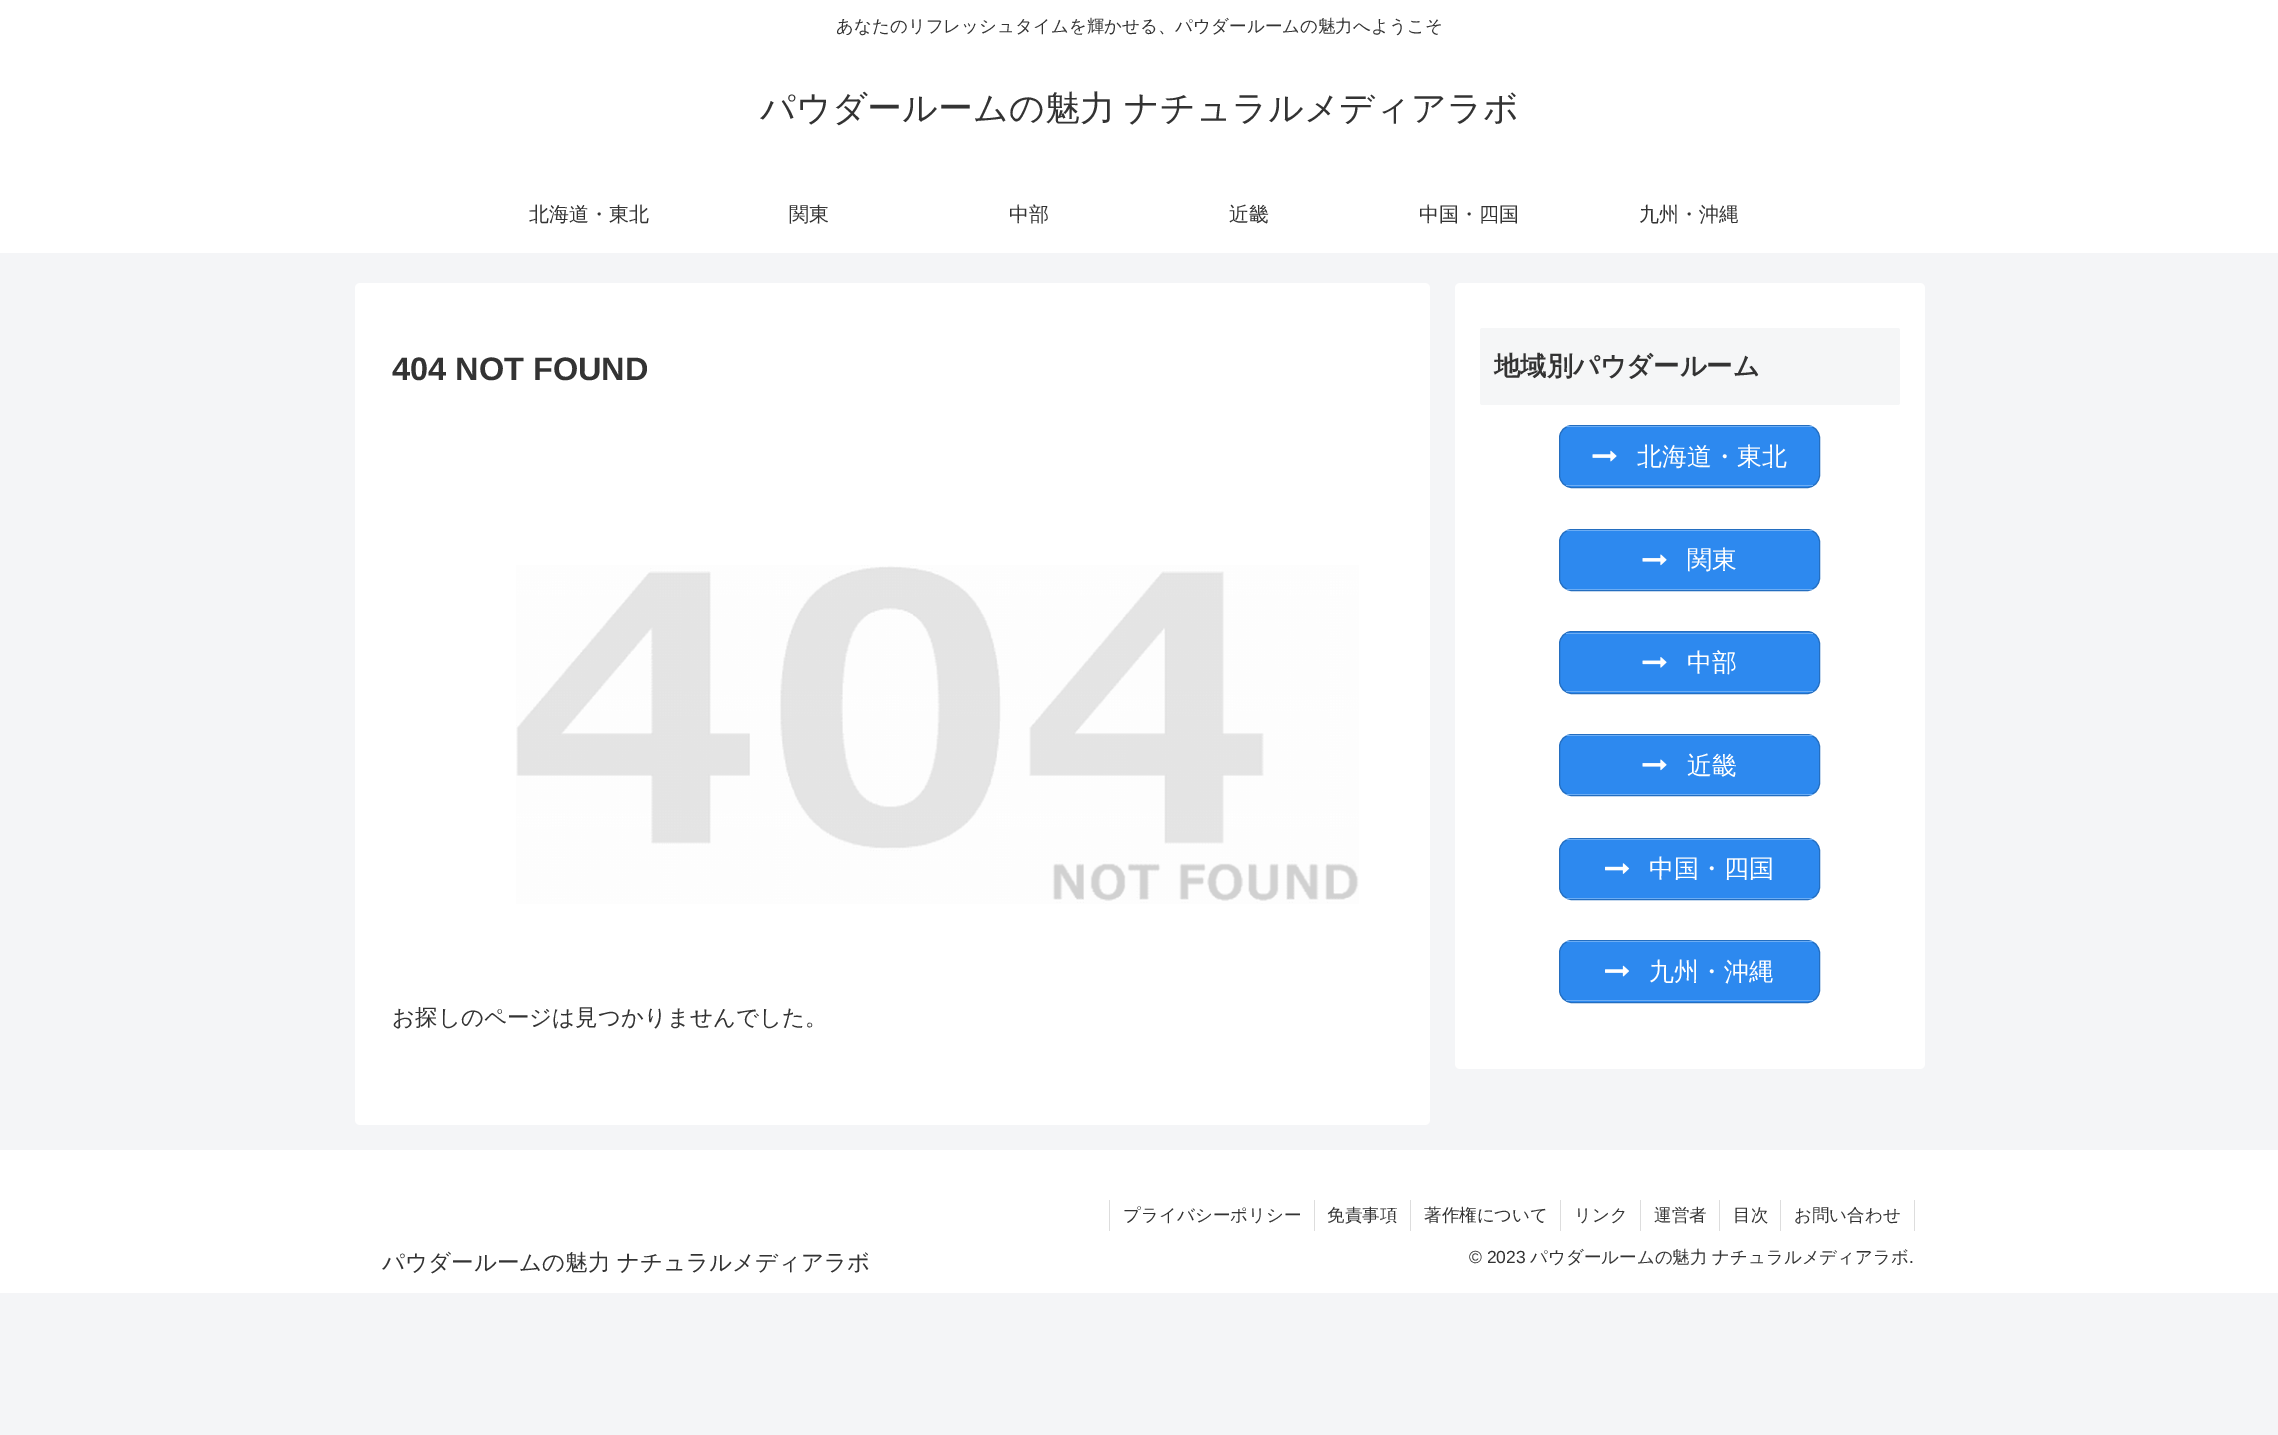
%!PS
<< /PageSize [2278 1435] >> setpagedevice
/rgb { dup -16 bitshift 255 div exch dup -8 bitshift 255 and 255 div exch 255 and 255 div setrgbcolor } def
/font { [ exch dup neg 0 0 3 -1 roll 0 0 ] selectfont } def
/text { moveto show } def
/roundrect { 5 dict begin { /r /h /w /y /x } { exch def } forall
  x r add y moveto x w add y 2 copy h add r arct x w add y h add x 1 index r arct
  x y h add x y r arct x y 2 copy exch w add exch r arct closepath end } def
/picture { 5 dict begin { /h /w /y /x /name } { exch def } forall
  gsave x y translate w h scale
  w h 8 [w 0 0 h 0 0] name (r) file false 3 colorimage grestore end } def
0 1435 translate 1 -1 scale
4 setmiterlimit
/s1 { /WenQuanYiZenHei-Medium 17.5 font 16#333333 rgb } def
/s2 { /WenQuanYiZenHei-Medium 20 font 16#333333 rgb } def
/s3 { /LiberationSans-Bold 32.5 font 16#333333 rgb } def
/s4 { /WenQuanYiZenHei-Medium 22.5 font 16#333333 rgb } def
/s5 { /WenQuanYiZenHei-Bold 26.25 font 16#333333 rgb } def
/s6 { /WenQuanYiZenHei-Medium 25 font 16#FFFFFF rgb } def
/s7 { /LiberationSans-Regular 17.5 font 16#333333 rgb } def
16#F4F5F7 rgb
0 0 2278 1435 rectfill
16#FFFFFF rgb
0 0 2278 253 rectfill
s1
(あなたのリフレッシュタイムを輝かせる、パウダールームの魅力へようこそ) 836 32 text
/WenQuanYiZenHei-Medium 35 font
760 120 moveto -1 0 32 (パウダールームの魅力 ナチュラルメディアラボ) widthshow
s2
(北海道・東北) 529 221 text
(関東) 789 221 text
(中部) 1009 221 text
(近畿) 1229 221 text
(中国・四国) 1419 221 text
(九州・沖縄) 1639 221 text
16#FFFFFF rgb
355 283 1075 842 5 roundrect fill
s3
(404 NOT FOUND) 392 380 text
(pic1.raw) 516 565 843 339 picture
s4
(お探しのページは見つかりませんでした。) 392 1025 text
16#FFFFFF rgb
1455 283 470 786 5 roundrect fill
16#F5F6F7 rgb
1480 328 420 77 2.5 roundrect fill
s5
(地域別パウダールーム) 1494 375 text
16#2D89EF rgb
1559.5 425.5 260 62 12.5 roundrect gsave fill grestore
16#246EC0 rgb
stroke
16#6CADF4 rgb
1566 426 247 1 rectfill
1566 485 247 1 rectfill
(pic2.raw) 1592 450 25 12 picture
s6
(北海道・東北) 1637 465 text
16#2D89EF rgb
1559.5 529.5 260 61 12.5 roundrect gsave fill grestore
16#246EC0 rgb
stroke
16#6CADF4 rgb
1566 530 247 1 rectfill
1566 589 247 1 rectfill
(pic3.raw) 1642 554 25 12 picture
s6
(関東) 1687 568 text
16#2D89EF rgb
1559.5 631.5 260 62 12.5 roundrect gsave fill grestore
16#246EC0 rgb
stroke
16#6CADF4 rgb
1566 633 247 1 rectfill
1566 691 247 1 rectfill
(pic4.raw) 1642 657 25 11 picture
s6
(中部) 1687 671 text
16#2D89EF rgb
1559.5 734.5 260 61 12.5 roundrect gsave fill grestore
16#246EC0 rgb
stroke
16#6CADF4 rgb
1566 735 247 1 rectfill
1566 794 247 1 rectfill
(pic3.raw) 1642 759 25 12 picture
s6
(近畿) 1687 774 text
16#2D89EF rgb
1559.5 838.5 260 61 12.5 roundrect gsave fill grestore
16#246EC0 rgb
stroke
16#6CADF4 rgb
1566 839 247 1 rectfill
1566 898 247 1 rectfill
(pic5.raw) 1605 863 25 11 picture
s6
(中国・四国) 1649 877 text
16#2D89EF rgb
1559.5 940.5 260 62 12.5 roundrect gsave fill grestore
16#246EC0 rgb
stroke
16#6CADF4 rgb
1566 941 247 1 rectfill
1566 1000 247 1 rectfill
(pic6.raw) 1605 965 24 12 picture
s6
(九州・沖縄) 1649 980 text
0 1150 2278 143 rectfill
s4
(パウダールームの魅力 ナチュラルメディアラボ) 382 1270 text
16#DDDDDD rgb
1109 1200 1 31 rectfill
s1
(プライバシーポリシー) 1123 1221 text
16#DDDDDD rgb
1314 1200 1 31 rectfill
s1
(免責事項) 1327 1221 text
16#DDDDDD rgb
1410 1200 1 31 rectfill
s1
(著作権について) 1424 1221 text
16#DDDDDD rgb
1560 1200 1 31 rectfill
s1
(リンク) 1574 1221 text
16#DDDDDD rgb
1640 1200 1 31 rectfill
s1
(運営者) 1654 1221 text
16#DDDDDD rgb
1719 1200 1 31 rectfill
s1
(目次) 1733 1221 text
16#DDDDDD rgb
1914 1200 1 31 rectfill
1780 1200 1 31 rectfill
s1
(お問い合わせ) 1794 1221 text
s7
(© 2023) 1469 1263 text
s1
(パウダールームの魅力) 1530 1263 text
(ナチュラルメディアラボ) 1712 1263 text
s7
(.) 1909 1263 text
showpage
